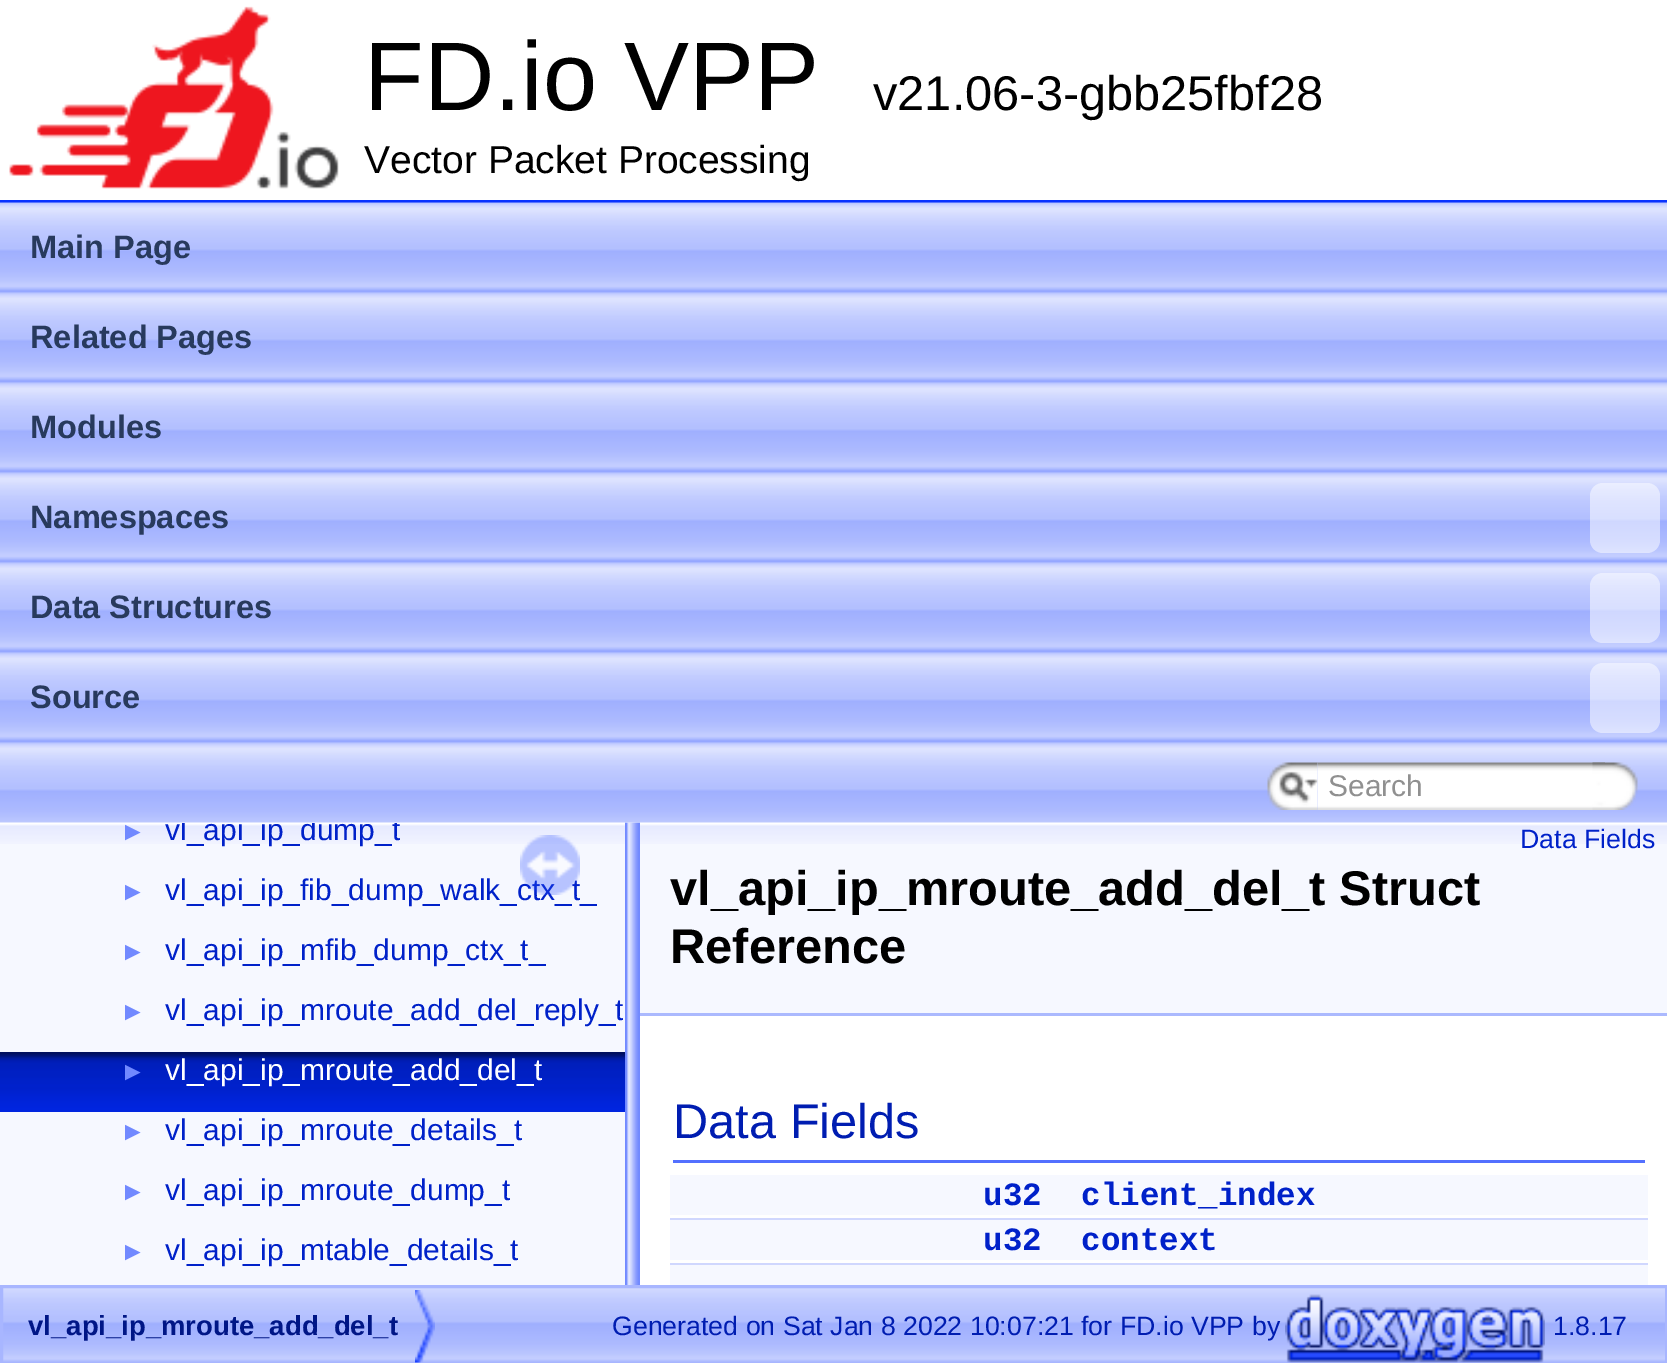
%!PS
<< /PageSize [1667 1363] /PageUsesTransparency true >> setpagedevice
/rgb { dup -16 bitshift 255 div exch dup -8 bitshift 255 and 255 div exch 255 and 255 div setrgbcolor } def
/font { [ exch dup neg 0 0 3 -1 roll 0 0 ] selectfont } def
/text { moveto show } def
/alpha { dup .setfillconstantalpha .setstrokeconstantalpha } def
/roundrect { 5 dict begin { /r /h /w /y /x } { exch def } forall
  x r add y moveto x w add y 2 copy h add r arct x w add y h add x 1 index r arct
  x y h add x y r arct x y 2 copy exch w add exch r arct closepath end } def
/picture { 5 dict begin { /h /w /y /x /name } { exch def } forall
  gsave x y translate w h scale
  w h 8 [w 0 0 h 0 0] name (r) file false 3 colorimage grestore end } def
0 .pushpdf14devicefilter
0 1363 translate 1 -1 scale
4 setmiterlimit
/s1 { /LiberationSans-Regular 97.5 font 16#000000 rgb } def
/s2 { /LiberationSans-Regular 48.75 font 16#000000 rgb } def
/s3 { /LiberationSans-Regular 39 font 16#000000 rgb } def
/s4 { /LiberationSans-Bold 32.5 font 16#283A5D rgb } def
/s5 { /LiberationSans-Regular 30 font 16#909090 rgb } def
/s6 { /LiberationSans-Regular 26 font 16#7189FF rgb } def
/s7 { /LiberationSans-Regular 30 font 16#0021C9 rgb } def
/s8 { /LiberationSans-Regular 30 font 16#FFFFFF rgb } def
/s9 { /LiberationSans-Regular 26.7 font 16#0021C9 rgb } def
/s10 { /LiberationSans-Bold 48.75 font 16#000000 rgb } def
/s11 { /LiberationSans-Regular 48.75 font 16#001DB1 rgb } def
/s12 { /LiberationMono-Bold 32.5 font 16#0021C9 rgb } def
/s13 { /LiberationSans-Bold 27.5 font 16#001686 rgb } def
/s14 { /LiberationSans-Regular 26.7 font 16#001DB1 rgb } def
16#FFFFFF rgb
0 0 1667 1363 rectfill
16#0932FF rgb
0 200 1667 3 rectfill
(pic1.raw) 9 6 330 183 picture
s1
(FD.io VPP) 364 110 text
s2
(v21.06-3-gbb25fbf28) 873 110 text
s3
(Vector Packet Processing) 364 173 text
(pic10.raw) 625 822 15 463 picture
(pic2.raw) 0 202 1667 621 picture
s4
(Main Page) 30 258 text
(Related Pages) 30 348 text
(Modules) 30 438 text
(Namespaces) 30 528 text
0.5 alpha
16#FFFFFF rgb
1590 483 70 70 13 roundrect fill
1 alpha
s4
(Data Structures) 30 618 text
0.5 alpha
16#FFFFFF rgb
1590 573 70 70 13 roundrect fill
1 alpha
s4
(Source) 30 708 text
0.5 alpha
16#FFFFFF rgb
1590 663 70 70 13 roundrect fill
1 alpha
(pic3.raw) 1267 762 51 48 picture
(pic4.raw) 1279 771 39 32 picture
(pic5.raw) 1317 762 288 48 picture
s5
(Search) 1328 796 text
(pic6.raw) 1592 762 46 48 picture
16#F6F8FF rgb
0 844 625 441 rectfill
(pic7.raw) 0 823 625 21 picture
s6
(►) 120 840 text
gsave
0 823 625 462 rectclip
s7
(vl_api_ip_dump_t) 165 840 text
grestore
(►) 120 900 text
s7
(vl_api_ip_fib_dump_walk_ctx_t_) 165 900 text
s6
(►) 120 960 text
s7
(vl_api_ip_mfib_dump_ctx_t_) 165 960 text
s6
(►) 120 1020 text
s7
(vl_api_ip_mroute_add_del_reply_t) 165 1020 text
(pic8.raw) 0 1052 625 60 picture
s6
(►) 120 1080 text
s8
(vl_api_ip_mroute_add_del_t) 165 1080 text
s6
(►) 120 1140 text
s7
(vl_api_ip_mroute_details_t) 165 1140 text
s6
(►) 120 1200 text
s7
(vl_api_ip_mroute_dump_t) 165 1200 text
s6
(►) 120 1260 text
s7
(vl_api_ip_mtable_details_t) 165 1260 text
(pic9.raw) 520 835 60 60 picture
16#F6F8FF rgb
640 844 1027 169 rectfill
(pic11.raw) 640 823 1027 21 picture
16#ABB9FE rgb
640 1013 1027 3 rectfill
s9
(Data Fields) 1520 848 text
s10
(vl_api_ip_mroute_add_del_t Struct) 670 905 text
(Reference) 670 963 text
16#5370FF rgb
673 1160 972 3 rectfill
s11
(Data Fields) 673 1138 text
16#F6F8FF rgb
670 1175 978 40 rectfill
s12
(u32) 983 1205 text
(client_index) 1081 1205 text
16#D0D7FE rgb
670 1218 978 2 rectfill
16#F6F8FF rgb
670 1220 978 40 rectfill
s12
(u32) 983 1250 text
(context) 1081 1250 text
16#D0D7FE rgb
670 1263 978 2 rectfill
16#F6F8FF rgb
670 1265 978 20 rectfill
(pic12.raw) 3 1288 1662 74 picture
16#A8B6FF rgb
3 setlinewidth
1.5 1286.5 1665 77 rectstroke
(pic13.raw) 415 1290 20 73 picture
s13
(vl_api_ip_mroute_add_del_t) 28 1335 text
s14
(Generated on Sat Jan 8 2022 10:07:21 for FD.io VPP by) 612 1335 text
(pic14.raw) 1285 1294 260 69 picture
(1.8.17) 1553 1335 text
.poppdf14devicefilter showpage
